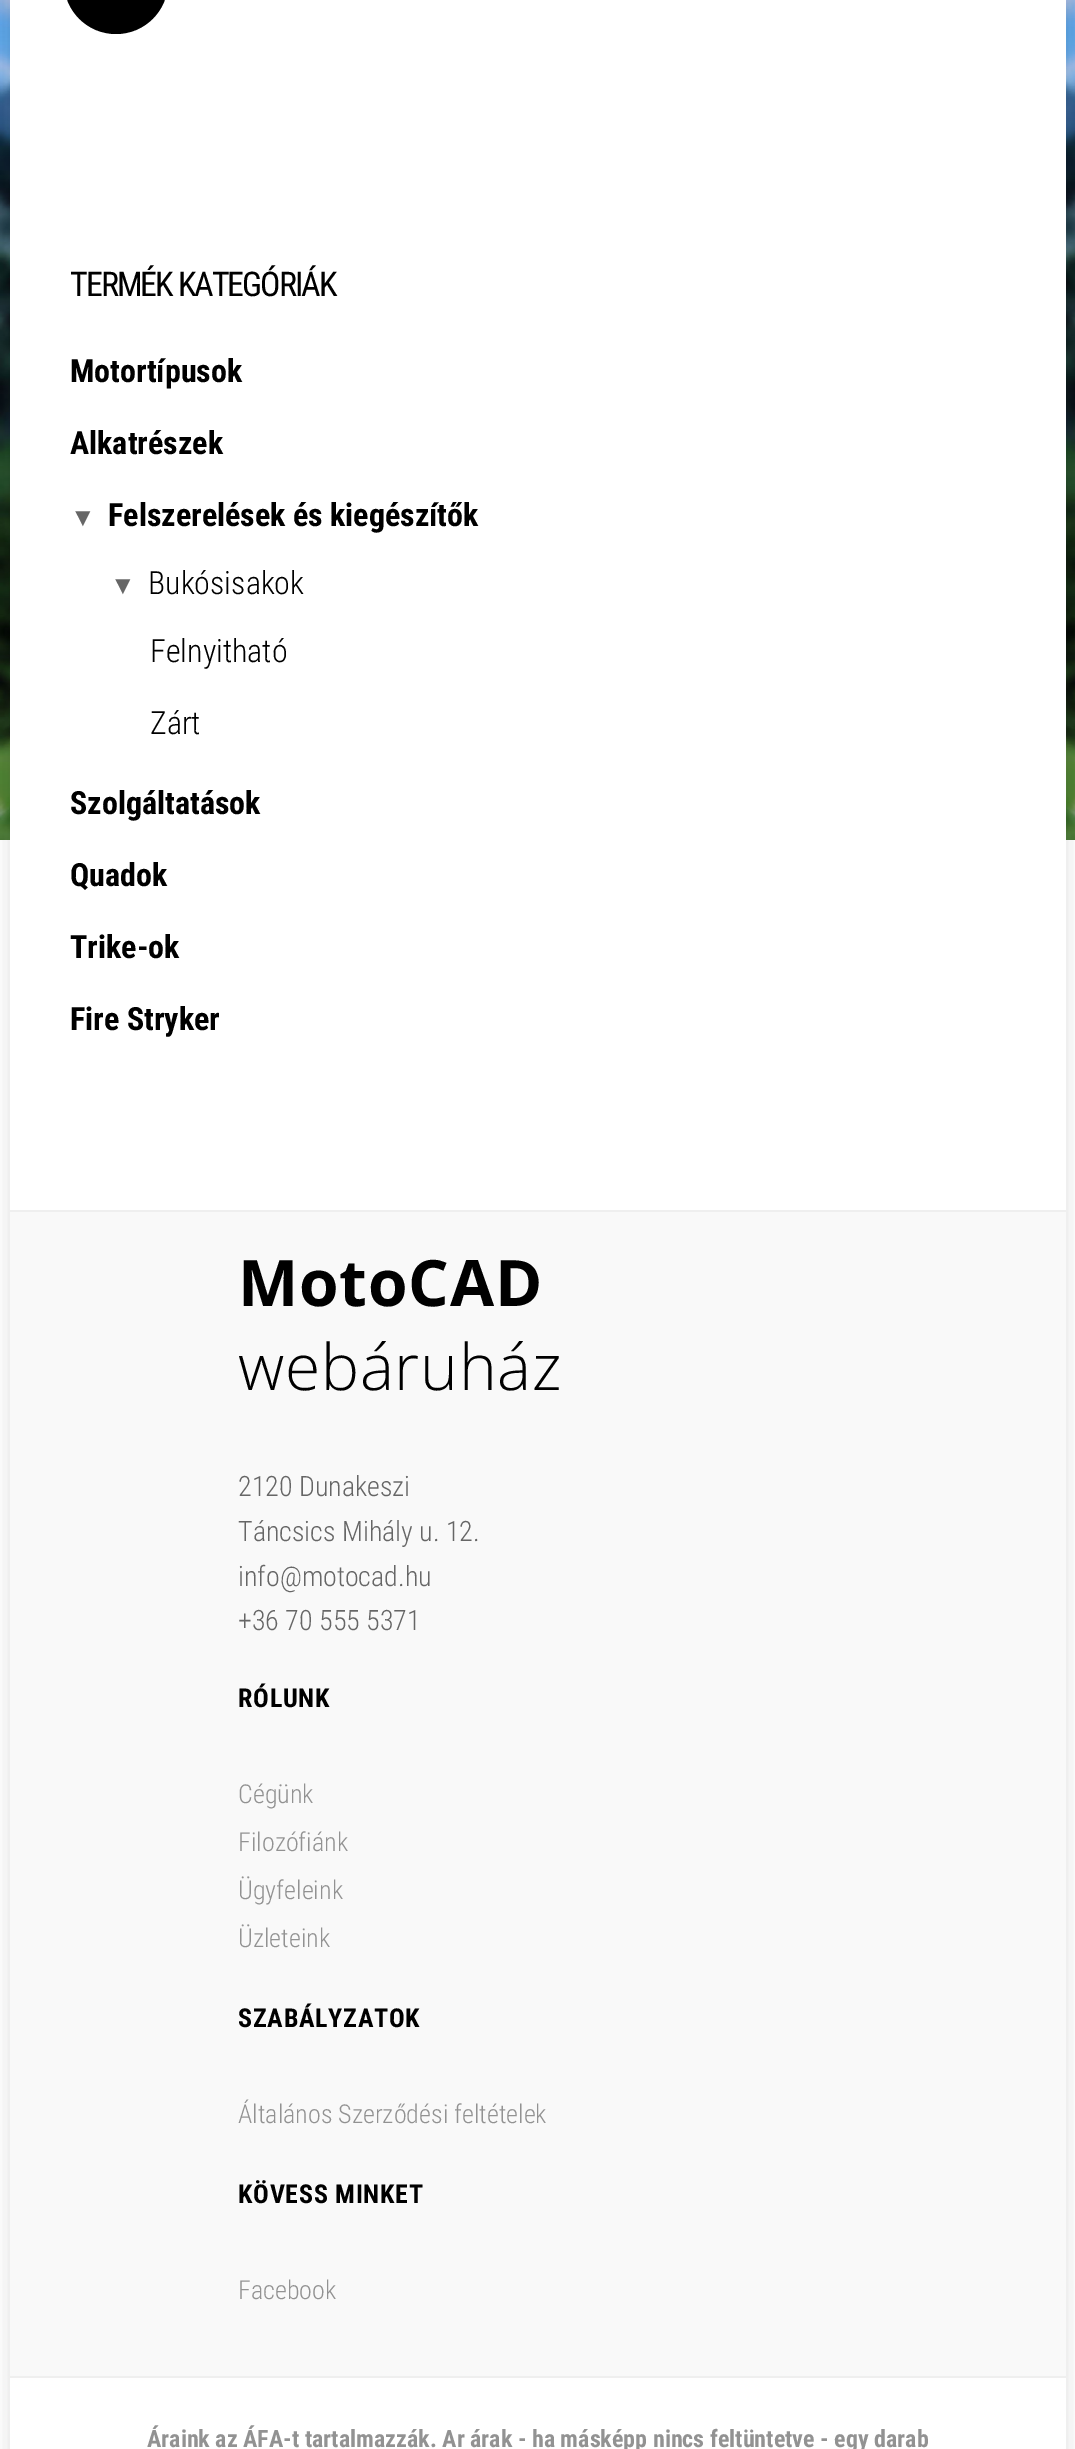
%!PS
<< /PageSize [1075 2449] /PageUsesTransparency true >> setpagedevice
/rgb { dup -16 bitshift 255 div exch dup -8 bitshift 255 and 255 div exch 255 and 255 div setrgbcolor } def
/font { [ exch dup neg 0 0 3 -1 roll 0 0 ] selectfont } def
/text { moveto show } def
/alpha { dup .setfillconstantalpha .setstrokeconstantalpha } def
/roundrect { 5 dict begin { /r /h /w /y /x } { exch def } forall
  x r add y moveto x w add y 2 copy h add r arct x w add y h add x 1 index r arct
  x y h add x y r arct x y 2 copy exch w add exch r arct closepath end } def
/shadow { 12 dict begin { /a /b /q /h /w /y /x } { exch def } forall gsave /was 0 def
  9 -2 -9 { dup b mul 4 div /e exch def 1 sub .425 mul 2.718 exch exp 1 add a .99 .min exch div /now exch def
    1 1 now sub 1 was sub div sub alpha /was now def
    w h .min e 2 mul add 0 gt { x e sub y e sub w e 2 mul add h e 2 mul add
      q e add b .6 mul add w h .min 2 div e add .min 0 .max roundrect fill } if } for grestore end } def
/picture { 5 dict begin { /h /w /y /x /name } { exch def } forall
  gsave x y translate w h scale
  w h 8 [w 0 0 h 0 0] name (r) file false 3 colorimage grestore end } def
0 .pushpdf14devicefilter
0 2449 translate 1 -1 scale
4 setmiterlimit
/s1 { /RobotoCondensed-Bold 32 font 16#000000 rgb } def
/s2 { /LiberationSerif-Regular 26 font 16#666666 rgb } def
/s3 { /RobotoCondensed-Light 32 font 16#000000 rgb } def
/s4 { /RobotoCondensed-Light 28 font 16#666666 rgb } def
/s5 { /RobotoCondensed-Light 26 font 16#929292 rgb } def
/s6 { /RobotoCondensed-Bold 24 font 16#929292 rgb } def
16#FFFFFF rgb
0 0 1075 2449 rectfill
(pic1.raw) 0 0 1075 840 picture
16#000000 rgb
10 -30 1056 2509 0 10 0.12 shadow
16#FFFFFF rgb
10 0 1056 2449 rectfill
16#000000 rgb
64 -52 104 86 52 roundrect fill
/RobotoCondensed-Regular 34 font
70 296 moveto -2 0 (TERMÉK KATEGÓRIÁK) ashow
s1
(Motortípusok) 70 382 text
(Alkatrészek) 70 454 text
s2
(▼) 70 526 text
s1
(Felszerelések és kiegészítők) 108 526 text
s2
(▼) 110 594 text
s3
(Bukósisakok) 148 594 text
(Felnyitható) 150 662 text
(Zárt) 150 734 text
s1
(Szolgáltatások) 70 814 text
(Quadok) 70 886 text
(Trike-ok) 70 958 text
(Fire Stryker) 70 1030 text
16#F9F9F9 rgb
10 1212 1056 1164 rectfill
16#EFEFEF rgb
10 1210 1056 2 rectfill
/OpenSans-Bold 64 font
16#000000 rgb
238 1306 moveto 0.75 0 (MotoCAD) ashow
/OpenSans-Light 64 font
238 1390 moveto 0.75 0 (webáruház) ashow
s4
(2120 Dunakeszi) 238 1496 text
(Táncsics Mihály u. 12.) 238 1541 text
(info@motocad.hu) 238 1586 text
(+36 70 555 5371) 238 1630 text
/RobotoCondensed-Bold 26 font
16#000000 rgb
238 1707 moveto 0.75 0 (RÓLUNK) ashow
s5
(Cégünk) 238 1803 text
(Filozófiánk) 238 1851 text
(Ügyfeleink) 238 1899 text
(Üzleteink) 238 1947 text
/RobotoCondensed-Bold 26 font
16#000000 rgb
238 2027 moveto 0.75 0 (SZABÁLYZATOK) ashow
s5
(Általános Szerződési feltételek) 238 2123 text
/RobotoCondensed-Bold 26 font
16#000000 rgb
238 2203 moveto 0.75 0 (KÖVESS MINKET) ashow
s5
(Facebook) 238 2299 text
16#EFEFEF rgb
10 2376 1056 2 rectfill
s6
(Áraink az ÁFA-t tartalmazzák. Ar árak - ha másképp nincs feltüntetve - egy darab) 147 2447 text
.poppdf14devicefilter showpage
